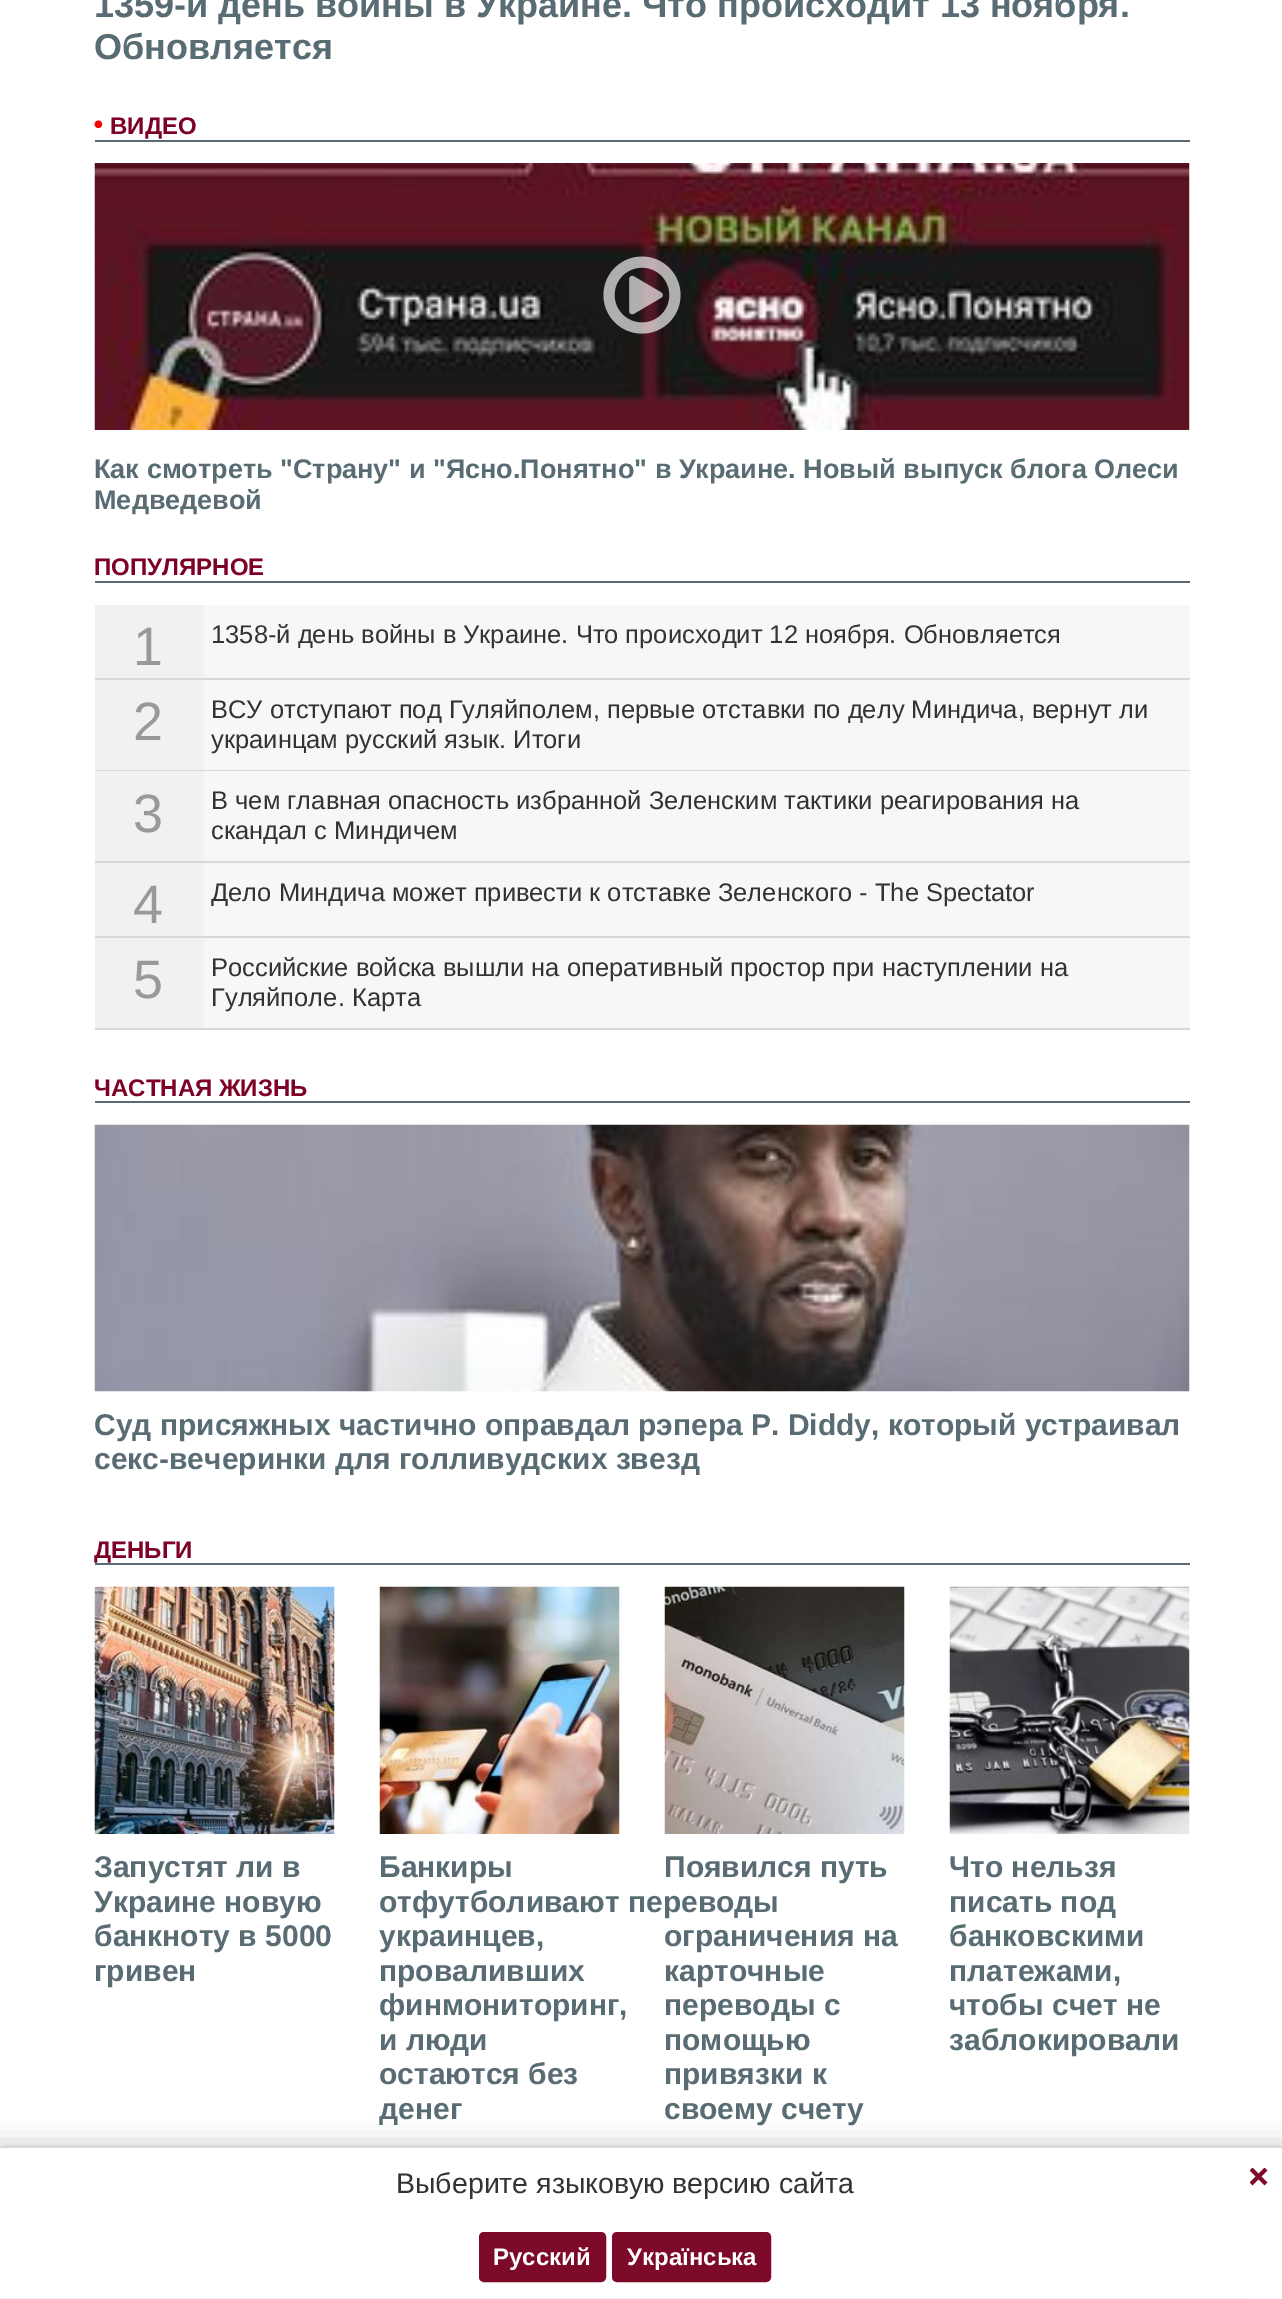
%!PS
<< /PageSize [1282 2299] /PageUsesTransparency true >> setpagedevice
/rgb { dup -16 bitshift 255 div exch dup -8 bitshift 255 and 255 div exch 255 and 255 div setrgbcolor } def
/font { [ exch dup neg 0 0 3 -1 roll 0 0 ] selectfont } def
/text { moveto show } def
/alpha { dup .setfillconstantalpha .setstrokeconstantalpha } def
/roundrect { 5 dict begin { /r /h /w /y /x } { exch def } forall
  x r add y moveto x w add y 2 copy h add r arct x w add y h add x 1 index r arct
  x y h add x y r arct x y 2 copy exch w add exch r arct closepath end } def
/shadow { 12 dict begin { /a /b /q /h /w /y /x } { exch def } forall gsave /was 0 def
  9 -2 -9 { dup b mul 4 div /e exch def 1 sub .425 mul 2.718 exch exp 1 add a .99 .min exch div /now exch def
    1 1 now sub 1 was sub div sub alpha /was now def
    w h .min e 2 mul add 0 gt { x e sub y e sub w e 2 mul add h e 2 mul add
      q e add b .6 mul add w h .min 2 div e add .min 0 .max roundrect fill } if } for grestore end } def
/picture { 5 dict begin { /h /w /y /x /name } { exch def } forall
  gsave x y translate w h scale
  w h 8 [w 0 0 h 0 0] name (r) file false 3 colorimage grestore end } def
0 .pushpdf14devicefilter
0 2299 translate 1 -1 scale
4 setmiterlimit
/s1 { /LiberationSans-Bold 36 font 16#596C73 rgb } def
/s2 { /LiberationSans-Bold 24 font 16#7D0126 rgb } def
/s3 { /LiberationSans-Bold 27 font 16#596C73 rgb } def
/s4 { /LiberationSans-Regular 54 font 16#999999 rgb } def
/s5 { /LiberationSans-Regular 25.5 font 16#333333 rgb } def
/s6 { /LiberationSans-Bold 30 font 16#596C73 rgb } def
/s7 { /LiberationSans-Regular 28.5 font 16#333333 rgb } def
/s8 { /LiberationSans-Bold 24 font 16#FFFFFF rgb } def
16#FFFFFF rgb
0 0 1282 2299 rectfill
s1
(1359-й день войны в Украине. Что происходит 13 ноября.) 94 17 text
(Обновляется) 94 59 text
95 140 1095 2 rectfill
(pic1.raw) 94 120 9 9 picture
s2
(ВИДЕО) 110 134 text
(pic2.raw) 94 163 1096 267 picture
(pic3.raw) 603 256 78 78 picture
s3
(Как смотреть "Страну" и "Ясно.Понятно" в Украине. Новый выпуск блога Олеси) 94 478 text
(Медведевой) 94 509 text
95 581 1095 2 rectfill
s2
(ПОПУЛЯРНОЕ) 94 575 text
16#F7F7F7 rgb
204 605 986 73 rectfill
16#D5D9DC rgb
95 678 1095 2 rectfill
16#F1F1F1 rgb
95 605 109 73 rectfill
s4
(1) 133 665 text
s5
(1358-й день войны в Украине. Что происходит 12 ноября. Обновляется) 211 643 text
16#F7F7F7 rgb
204 680 986 90 rectfill
16#D5D9DC rgb
95 770 1095 1 rectfill
16#F1F1F1 rgb
95 680 109 90 rectfill
s4
(2) 133 740 text
s5
(ВСУ отступают под Гуляйполем, первые отставки по делу Миндича, вернут ли) 211 718 text
(украинцам русский язык. Итоги) 211 748 text
16#F7F7F7 rgb
204 771 986 90 rectfill
16#D5D9DC rgb
95 861 1095 2 rectfill
16#F1F1F1 rgb
95 771 109 90 rectfill
s4
(3) 133 832 text
s5
(В чем главная опасность избранной Зеленским тактики реагирования на) 211 809 text
(скандал с Миндичем) 211 839 text
16#F7F7F7 rgb
204 863 986 73 rectfill
16#D5D9DC rgb
95 936 1095 2 rectfill
16#F1F1F1 rgb
95 863 109 73 rectfill
s4
(4) 133 923 text
s5
(Дело Миндича может привести к отставке Зеленского - The Spectator) 211 901 text
16#F7F7F7 rgb
204 938 986 90 rectfill
16#D5D9DC rgb
95 1028 1095 2 rectfill
16#F1F1F1 rgb
95 938 109 90 rectfill
s4
(5) 133 998 text
s5
(Российские войска вышли на оперативный простор при наступлении на) 211 976 text
(Гуляйполе. Карта) 211 1006 text
16#596C73 rgb
95 1101 1095 2 rectfill
s2
(ЧАСТНАЯ ЖИЗНЬ) 94 1096 text
(pic4.raw) 94 1124 1096 268 picture
s6
(Суд присяжных частично оправдал рэпера P. Diddy, который устраивал) 94 1435 text
(секс-вечеринки для голливудских звезд) 94 1469 text
95 1563 1095 2 rectfill
s2
(ДЕНЬГИ) 94 1558 text
(pic5.raw) 94 1586 241 248 picture
s6
(Запустят ли в) 94 1877 text
(Украине новую) 94 1912 text
(банкноту в 5000) 94 1946 text
(гривен) 94 1981 text
(pic6.raw) 379 1586 241 248 picture
(Банкиры) 379 1877 text
(отфутболивают переводы) 379 1912 text
(украинцев,) 379 1946 text
(проваливших) 379 1981 text
(финмониторинг,) 379 2015 text
(и люди) 379 2050 text
(остаются без) 379 2084 text
(денег) 379 2119 text
(pic7.raw) 664 1586 241 248 picture
(Появился путь) 664 1877 text
(ограничения на) 664 1946 text
(карточные) 664 1981 text
(переводы с) 664 2015 text
(помощью) 664 2050 text
(привязки к) 664 2084 text
(своему счету) 664 2119 text
(pic8.raw) 949 1586 241 248 picture
(Что нельзя) 949 1877 text
(писать под) 949 1912 text
(банковскими) 949 1946 text
(платежами,) 949 1981 text
(чтобы счет не) 949 2015 text
(заблокировали) 949 2050 text
16#000000 rgb
0 2156 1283 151 0 15 0.5 shadow
16#FFFFFF rgb
0 2148 1282 151 rectfill
16#ECEEEF rgb
0 2298 1250 1 rectfill
s7
(Выберите языковую версию сайта) 396 2193 text
16#7E0A2A rgb
480.5 2233.5 124 47 3.5 roundrect gsave fill grestore
3 setlinewidth
stroke
s8
(Русский) 493 2265 text
16#7E0A2A rgb
613.5 2233.5 156 47 3.5 roundrect gsave fill grestore
stroke
s8
(Українська) 627 2265 text
(pic9.raw) 1250 2168 18 18 picture
.poppdf14devicefilter showpage
